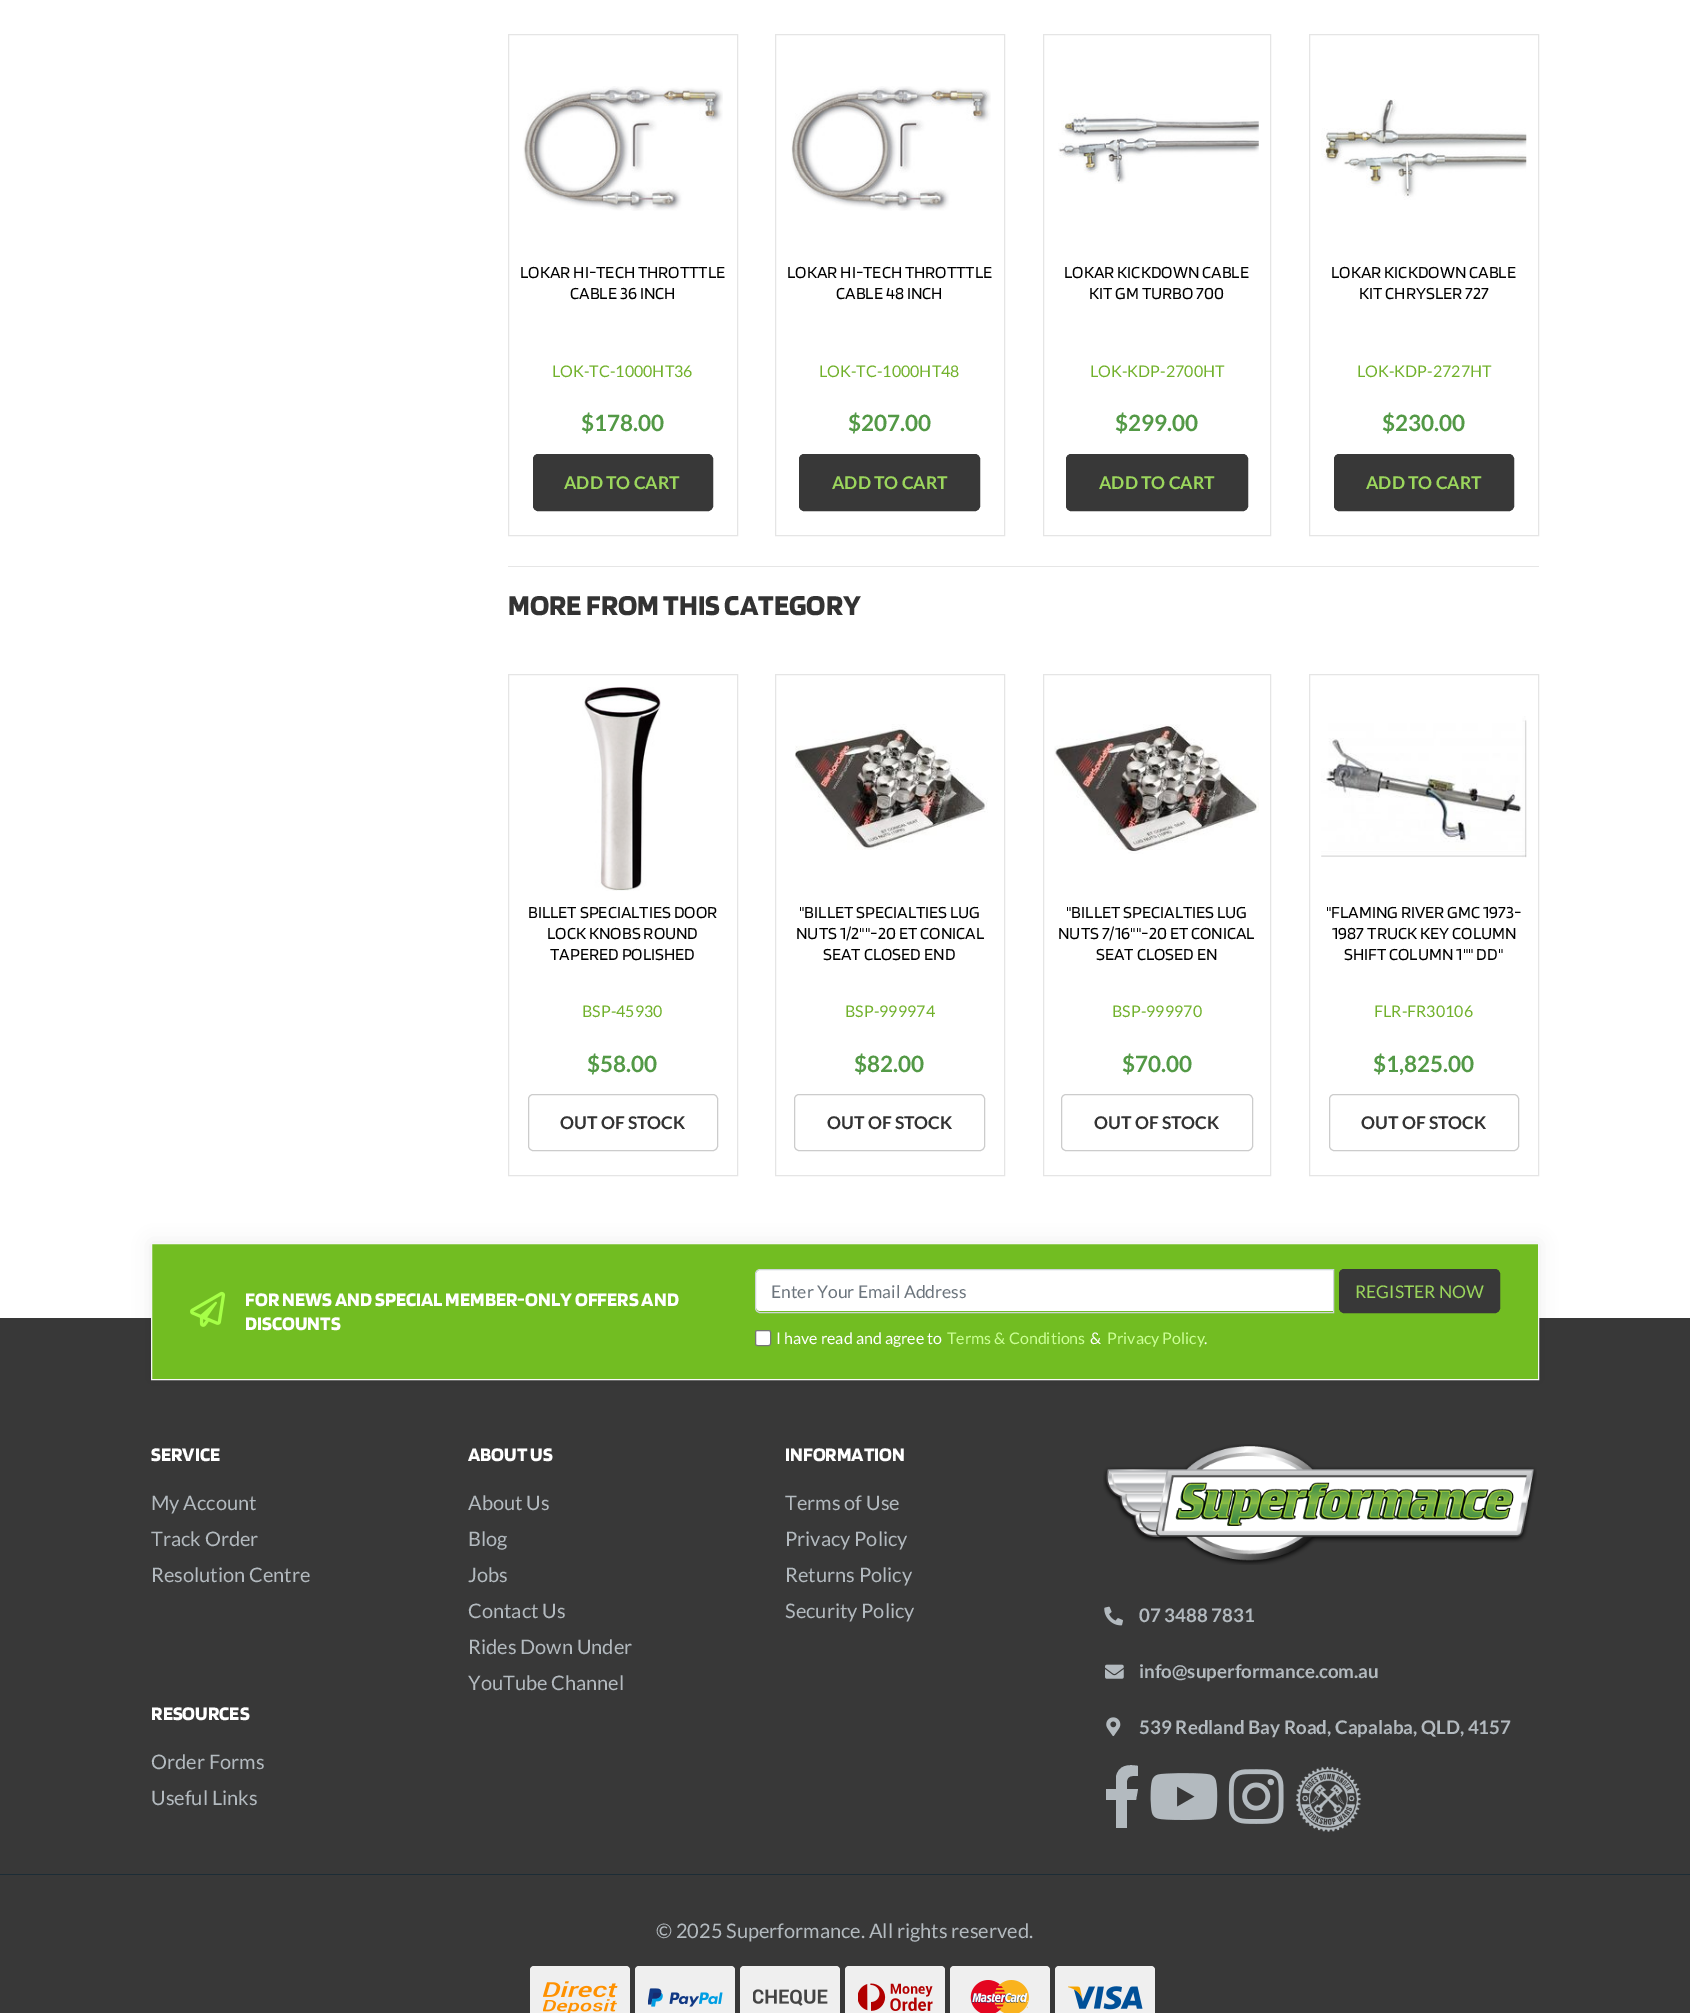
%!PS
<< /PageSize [1690 2013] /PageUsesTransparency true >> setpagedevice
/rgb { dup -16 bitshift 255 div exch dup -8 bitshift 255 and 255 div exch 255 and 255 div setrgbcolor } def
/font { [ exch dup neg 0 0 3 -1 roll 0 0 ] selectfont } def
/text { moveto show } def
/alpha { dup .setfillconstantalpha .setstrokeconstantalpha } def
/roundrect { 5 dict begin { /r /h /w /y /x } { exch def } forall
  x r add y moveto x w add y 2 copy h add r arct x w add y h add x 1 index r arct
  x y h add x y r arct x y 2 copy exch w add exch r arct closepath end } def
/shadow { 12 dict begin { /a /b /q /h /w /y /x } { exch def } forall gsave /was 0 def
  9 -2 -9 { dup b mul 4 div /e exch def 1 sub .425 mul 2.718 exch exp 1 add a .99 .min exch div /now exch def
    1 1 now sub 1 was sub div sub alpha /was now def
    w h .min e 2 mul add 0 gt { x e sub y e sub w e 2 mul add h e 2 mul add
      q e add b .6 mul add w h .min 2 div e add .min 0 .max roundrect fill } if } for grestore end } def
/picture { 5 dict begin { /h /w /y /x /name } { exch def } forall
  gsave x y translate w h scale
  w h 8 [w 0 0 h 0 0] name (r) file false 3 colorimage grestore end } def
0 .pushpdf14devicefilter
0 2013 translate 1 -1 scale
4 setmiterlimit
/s1 { /Blinker-Regular 17.5 font 16#000000 rgb } def
/s2 { /Lato-Regular 16 font 16#71B12B rgb } def
/s3 { /Lato-Bold 22.5 font 16#539946 rgb } def
/s4 { /Lato-Bold 17.5 font 16#9BD65C rgb } def
/s5 { /Blinker-Bold 30 font 16#333333 rgb } def
/s6 { /Lato-Bold 17.5 font 16#333333 rgb } def
/s7 { /Blinker-Bold 20 font 16#FFFFFF rgb } def
/s8 { /Lato-Regular 17.5 font 16#6C757D rgb } def
/s9 { /Lato-Regular 17.5 font 16#9BD65C rgb } def
/s10 { /Lato-Regular 16 font 16#FFFFFF rgb } def
/s11 { /Lato-Regular 16 font 16#CBFF94 rgb } def
/s12 { /Lato-Regular 20 font 16#B3BABF rgb } def
/s13 { /Lato-Bold 18.75 font 16#B3BABF rgb } def
16#FFFFFF rgb
0 0 1690 2013 rectfill
16#E5E5E5 rgb
508.5 34.5 229 501 rectstroke
(pic1.raw) 523 86 200 125 picture
s1
(LOKAR HI-TECH THROTTTLE) 520 278 text
(CABLE 36 INCH) 570 299 text
s2
(LOK-TC-1000HT36) 552 377 text
s3
($178.00) 581 431 text
16#383838 rgb
533.5 454.5 179 56 4.5 roundrect gsave fill grestore
stroke
s4
(ADD TO CART) 564 489 text
16#E5E5E5 rgb
775.5 34.5 229 501 rectstroke
(pic2.raw) 791 86 200 125 picture
s1
(LOKAR HI-TECH THROTTTLE) 787 278 text
(CABLE 48 INCH) 836 299 text
s2
(LOK-TC-1000HT48) 819 377 text
s3
($207.00) 848 431 text
16#383838 rgb
799.5 454.5 180 56 4.5 roundrect gsave fill grestore
stroke
s4
(ADD TO CART) 832 489 text
16#E5E5E5 rgb
1043.5 34.5 227 501 rectstroke
(pic3.raw) 1058 113 201 71 picture
s1
(LOKAR KICKDOWN CABLE) 1064 278 text
(KIT GM TURBO 700) 1089 299 text
s2
(LOK-KDP-2700HT) 1090 377 text
s3
($299.00) 1115 431 text
16#383838 rgb
1066.5 454.5 181 56 4.5 roundrect gsave fill grestore
stroke
s4
(ADD TO CART) 1099 489 text
16#E5E5E5 rgb
1309.5 34.5 229 501 rectstroke
(pic4.raw) 1321 99 206 101 picture
s1
(LOKAR KICKDOWN CABLE) 1331 278 text
(KIT CHRYSLER 727) 1359 299 text
s2
(LOK-KDP-2727HT) 1357 377 text
s3
($230.00) 1382 431 text
16#383838 rgb
1334.5 454.5 179 56 4.5 roundrect gsave fill grestore
stroke
s4
(ADD TO CART) 1366 489 text
16#E6E6E6 rgb
508 566 1031 1 rectfill
s5
(MORE FROM THIS CATEGORY) 508 615 text
16#E5E5E5 rgb
508.5 674.5 229 501 rectstroke
(pic5.raw) 582 687 79 204 picture
s1
(BILLET SPECIALTIES DOOR) 528 918 text
(LOCK KNOBS ROUND) 547 939 text
(TAPERED POLISHED) 550 960 text
s2
(BSP-45930) 582 1017 text
s3
($58.00) 587 1072 text
16#CCCCCC rgb
528.5 1094.5 189 56 4.5 roundrect stroke
s6
(OUT OF STOCK) 560 1129 text
16#E5E5E5 rgb
775.5 674.5 229 501 rectstroke
(pic6.raw) 795 724 193 126 picture
s1
("BILLET SPECIALTIES LUG) 799 918 text
(NUTS 1/2""-20 ET CONICAL) 796 939 text
(SEAT CLOSED END) 823 960 text
s2
(BSP-999974) 845 1017 text
s3
($82.00) 854 1072 text
16#CCCCCC rgb
794.5 1094.5 190 56 4.5 roundrect stroke
s6
(OUT OF STOCK) 827 1129 text
16#E5E5E5 rgb
1043.5 674.5 227 501 rectstroke
(pic7.raw) 1054 724 205 130 picture
s1
("BILLET SPECIALTIES LUG) 1066 918 text
(NUTS 7/16""-20 ET CONICAL) 1058 939 text
(SEAT CLOSED EN) 1096 960 text
s2
(BSP-999970) 1112 1017 text
s3
($70.00) 1122 1072 text
16#CCCCCC rgb
1061.5 1094.5 191 56 4.5 roundrect stroke
s6
(OUT OF STOCK) 1094 1129 text
16#E5E5E5 rgb
1309.5 674.5 229 501 rectstroke
(pic8.raw) 1321 716 206 142 picture
s1
("FLAMING RIVER GMC 1973-) 1326 918 text
(1987 TRUCK KEY COLUMN) 1332 939 text
(SHIFT COLUMN 1"" DD") 1344 960 text
s2
(FLR-FR30106) 1374 1017 text
s3
($1,825.00) 1373 1072 text
16#CCCCCC rgb
1329.5 1094.5 189 56 4.5 roundrect stroke
s6
(OUT OF STOCK) 1361 1129 text
16#383838 rgb
0 1318 1690 695 rectfill
16#000000 rgb
151 1243 1388 137 0 9 0.07 shadow
16#72BD22 rgb
151.5 1243.5 moveto 1538.5 1243.5 lineto 1538.5 1379.5 lineto 151.5 1379.5 lineto closepath gsave fill grestore
16#F7F7F7 rgb
stroke
(pic9.raw) 190 1291 36 36 picture
s7
(FOR NEWS AND SPECIAL MEMBER-ONLY OFFERS AND) 245 1306 text
(DISCOUNTS) 245 1330 text
760 1270 moveto 1333 1270 lineto 1333 1311 lineto 760 1311 lineto 758 1311 756 1309 756 1307 curveto 756 1274 lineto 756 1272 758 1270 760 1270 curveto closepath fill
16#CED4DA rgb
760 1269.5 moveto 1333.5 1269.5 lineto 1333.5 1312.5 lineto 760 1312.5 lineto 757.5 1312.5 755.5 1310.5 755.5 1308 curveto 755.5 1274 lineto 755.5 1271.5 757.5 1269.5 760 1269.5 curveto closepath stroke
s8
(Enter Your Email Address) 771 1298 text
16#383838 rgb
1339.5 1269.5 160 43 4.5 roundrect gsave fill grestore
stroke
s9
(REGISTER NOW) 1355 1298 text
16#FFFFFF rgb
755.5 1330.5 15 15 2 roundrect gsave fill grestore
16#767676 rgb
stroke
s10
(I have read and agree to) 776 1344 text
s11
(Terms & Conditions) 947 1344 text
s10
(&) 1090 1344 text
s11
(Privacy Policy) 1107 1344 text
s10
(.) 1204 1344 text
s7
(SERVICE) 151 1461 text
s12
(My Account) 151 1510 text
(Track Order) 151 1546 text
(Resolution Centre) 151 1582 text
s7
(ABOUT US) 468 1461 text
s12
(About Us) 468 1510 text
(Blog) 468 1546 text
(Jobs) 468 1582 text
(Contact Us) 468 1618 text
(Rides Down Under) 468 1654 text
(YouTube Channel) 468 1690 text
s7
(INFORMATION) 785 1461 text
s12
(Terms of Use) 785 1510 text
(Privacy Policy) 785 1546 text
(Returns Policy) 785 1582 text
(Security Policy) 785 1618 text
s7
(RESOURCES) 151 1720 text
s12
(Order Forms) 151 1769 text
(Useful Links) 151 1805 text
(pic10.raw) 1103 1444 434 121 picture
(pic11.raw) 1104 1606 19 20 picture
s13
(07 3488 7831) 1139 1622 text
(pic12.raw) 1105 1664 19 15 picture
(info@superformance.com.au) 1139 1678 text
(pic13.raw) 1106 1717 15 20 picture
(539 Redland Bay Road, Capalaba, QLD, 4157) 1139 1734 text
1133 1776 moveto 1125 1776 1127 1784 1127 1789 curveto 1138 1789 lineto 1136 1800 lineto 1127 1800 lineto 1127 1828 lineto 1116 1828 lineto 1116 1800 lineto 1106 1800 lineto 1106 1789 lineto 1116 1789 lineto 1116 1777 lineto 1118 1765 1129 1764 1138 1766 curveto 1138 1776 lineto closepath fill
(pic14.raw) 1150 1773 68 47 picture
(pic15.raw) 1228 1769 56 55 picture
(pic16.raw) 1296 1766 65 66 picture
16#1C2C36 rgb
0 1874 1690 1 rectfill
s12
(© 2025 Superformance. All rights reserved.) 656 1938 text
16#EFEFEF rgb
530 1966 100 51 4 roundrect fill
(pic17.raw) 543 1981 75 32 picture
635 1966 100 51 4 roundrect fill
(pic18.raw) 648 1988 75 19 picture
740 1966 100 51 4 roundrect fill
(pic19.raw) 753 1989 75 17 picture
845 1966 100 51 4 roundrect fill
(pic20.raw) 858 1983 75 28 picture
950 1966 100 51 4 roundrect fill
(pic21.raw) 970 1980 59 33 picture
1055 1966 100 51 4 roundrect fill
(pic22.raw) 1068 1986 75 24 picture
.poppdf14devicefilter showpage
